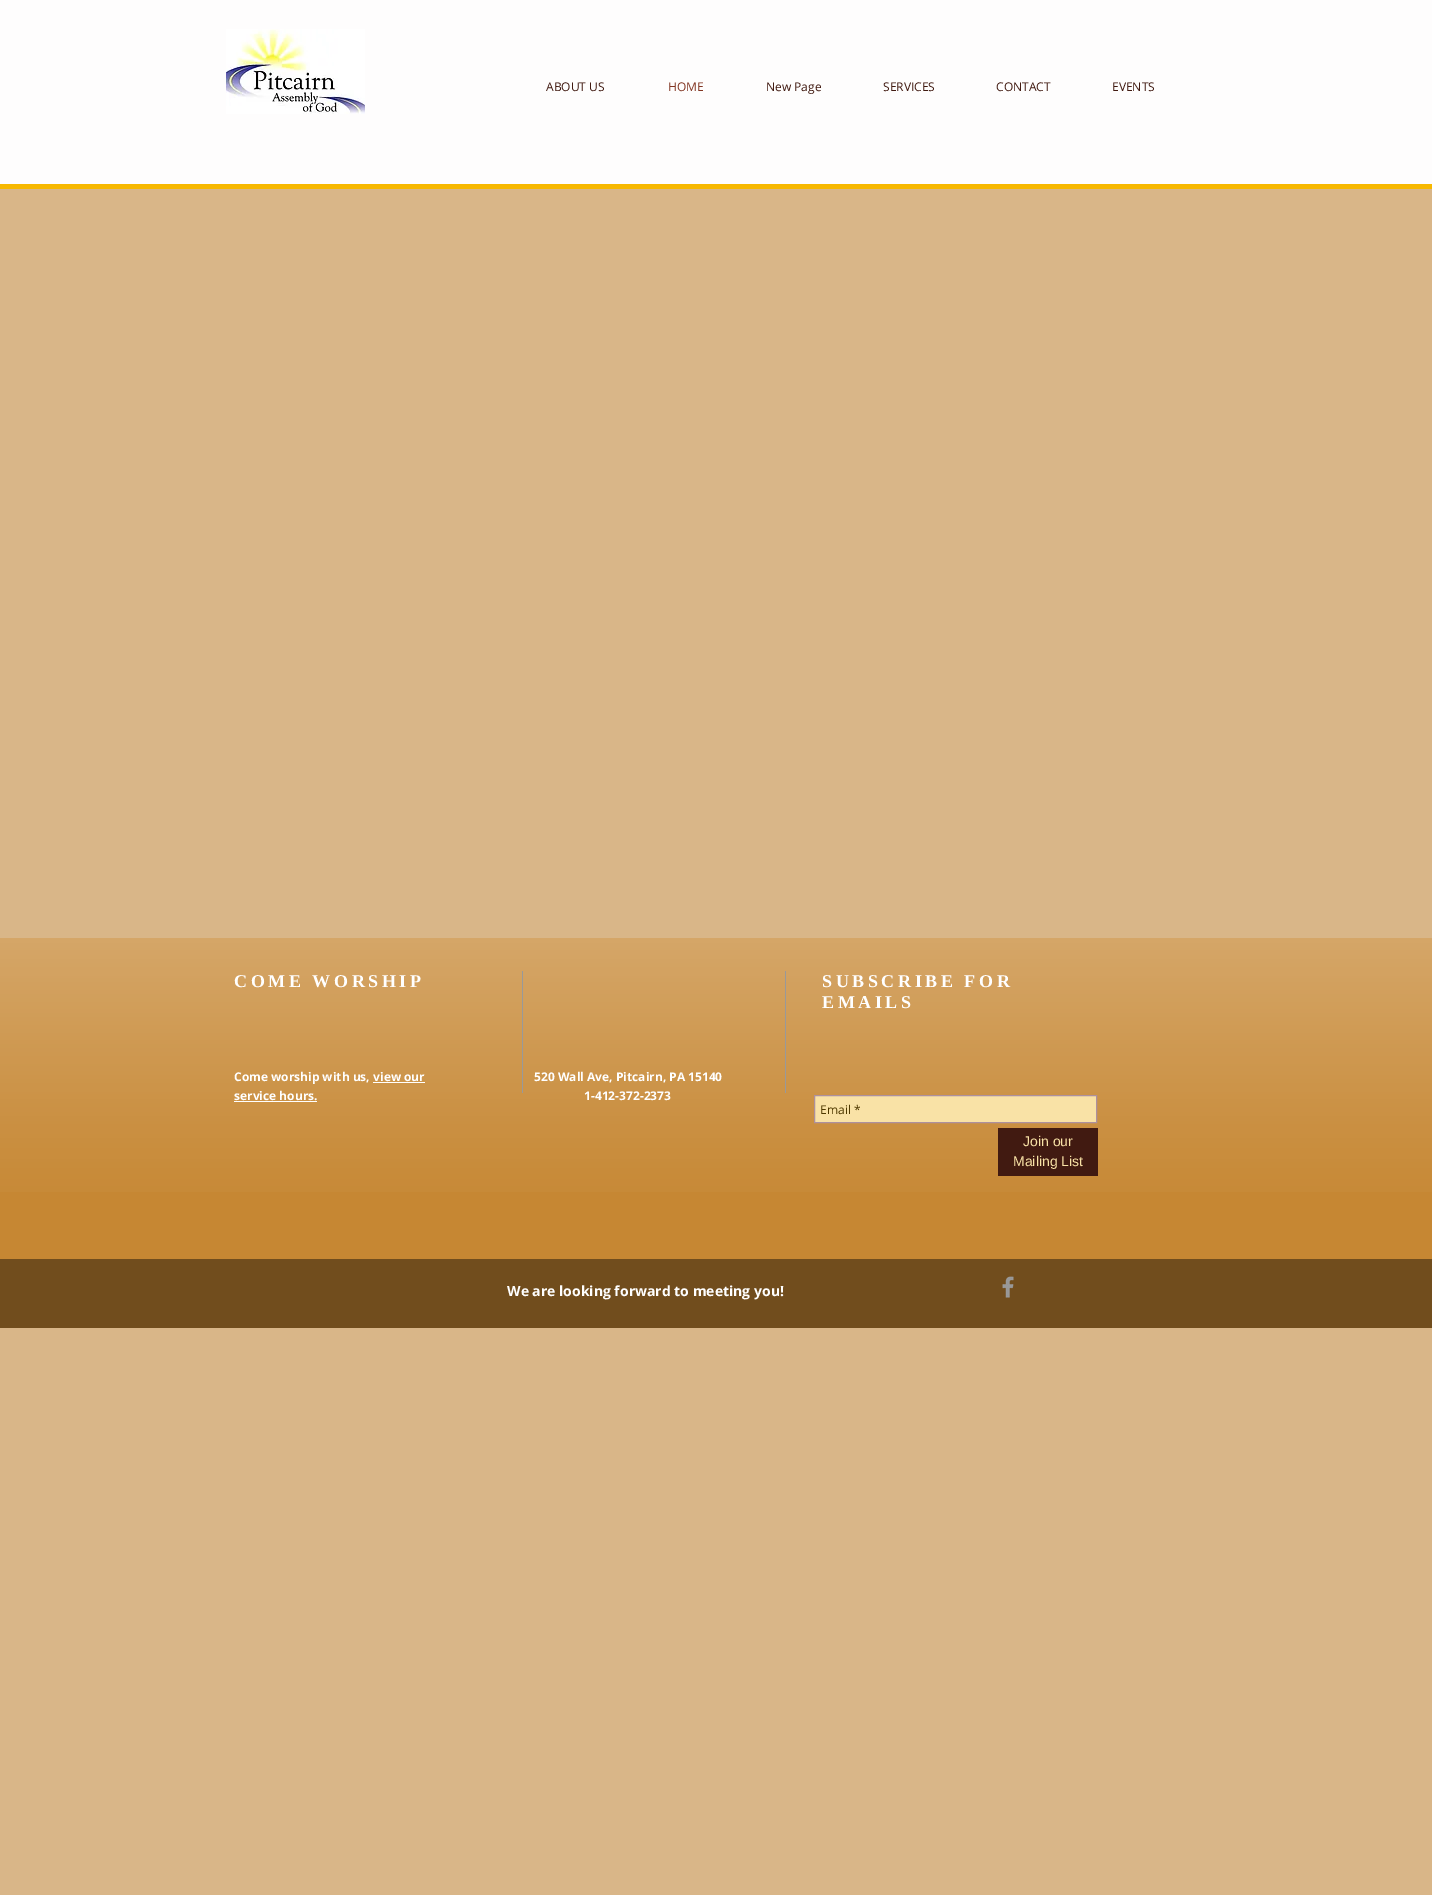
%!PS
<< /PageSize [1432 1895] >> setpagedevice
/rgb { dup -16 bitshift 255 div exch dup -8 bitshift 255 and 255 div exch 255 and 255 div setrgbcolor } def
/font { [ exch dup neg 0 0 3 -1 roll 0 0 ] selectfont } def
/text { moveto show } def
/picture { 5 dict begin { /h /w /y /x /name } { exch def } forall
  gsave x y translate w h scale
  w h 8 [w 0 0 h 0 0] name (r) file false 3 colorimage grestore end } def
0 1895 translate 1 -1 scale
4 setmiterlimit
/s1 { /OpenSans-Regular 12 font 16#411A11 rgb } def
/s2 { /OpenSans-Regular 12 font 16#823522 rgb } def
/s3 { /OpenSans-Bold 12 font 16#FFFFFF rgb } def
/s4 { /OpenSans-Regular 12 font 16#4F3900 rgb } def
/s5 { /LiberationSans-Regular 14 font 16#F9E2A6 rgb } def
/s6 { /OpenSans-Bold 14 font 16#FFFFFF rgb } def
16#D9B688 rgb
0 0 1432 1895 rectfill
16#FEFDFD rgb
0 0 1432 184 rectfill
16#F7B800 rgb
0 184 1432 5 rectfill
(pic1.raw) 226 29 139 85 picture
s1
(ABOUT US) 546 91 text
s2
(HOME) 668 91 text
s1
(New Page) 766 91 text
(SERVICES) 883 91 text
(CONTACT) 996 91 text
(EVENTS) 1112 91 text
16#C68733 rgb
0 938 1432 321 rectfill
(pic2.raw) 0 938 1432 254 picture
/LiberationSerif-Bold 18 font
16#FFFFFF rgb
234 987 moveto 3.6 0 (COME WORSHIP) ashow
16#999999 rgb
522 971 1 122 rectfill
785 971 1 122 rectfill
16#FFFFFF rgb
822 987 moveto 3.6 0 (SUBSCRIBE FOR) ashow
822 1008 moveto 3.6 0 (EMAILS) ashow
s3
(Come worship with us, view our) 234 1081 text
373 1082 52 1 rectfill
(service hours.) 234 1100 text
234 1101 83 1 rectfill
(520 Wall Ave, Pitcairn, PA 15140) 534 1081 text
(1-412-372-2373) 584 1100 text
16#F9E2A6 rgb
814.5 1095.5 moveto 1096.5 1095.5 lineto 1096.5 1122.5 lineto 814.5 1122.5 lineto closepath gsave fill grestore
16#AD909E rgb
stroke
s4
(Email *) 820 1114 text
16#411A11 rgb
998 1128 100 48 rectfill
s5
(Join our) 1023 1146 text
(Mailing List) 1013 1166 text
16#714D1D rgb
0 1259 1432 69 rectfill
s6
(We are looking forward to meeting you!) 507 1296 text
(pic3.raw) 1002 1276 12 22 picture
showpage
